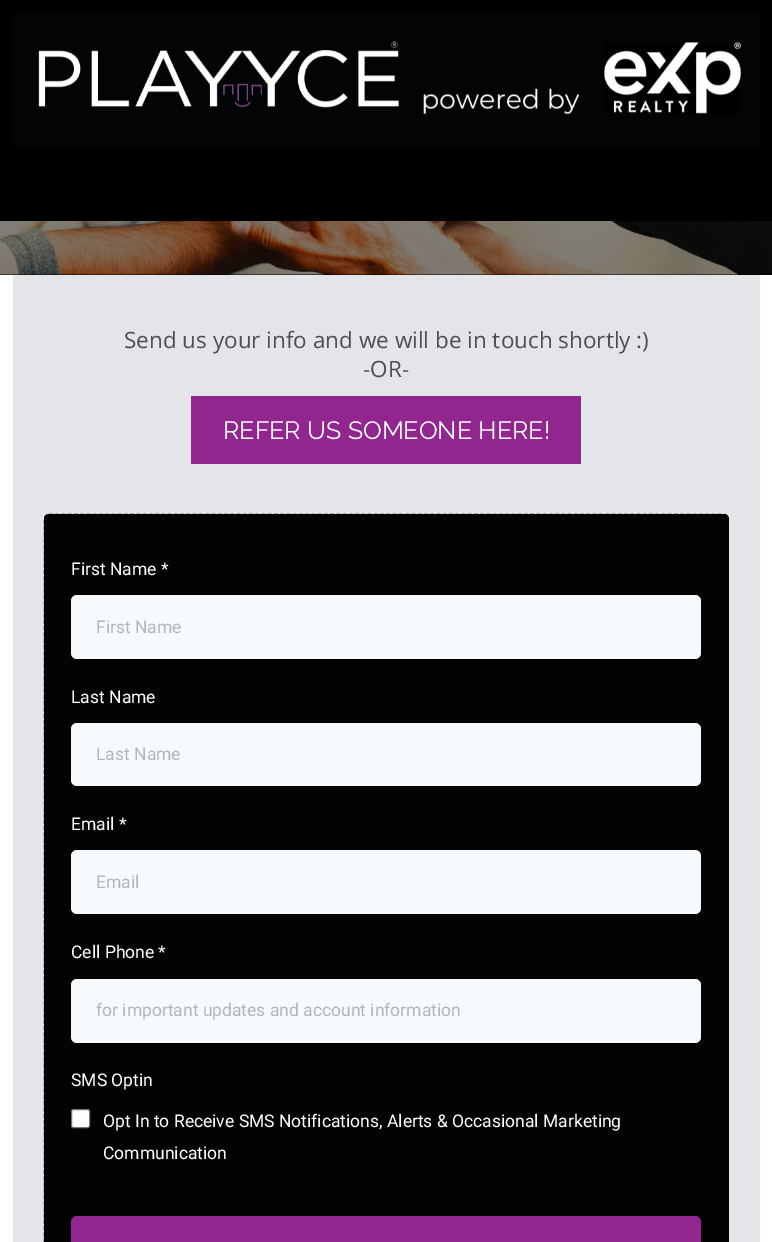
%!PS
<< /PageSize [772 1242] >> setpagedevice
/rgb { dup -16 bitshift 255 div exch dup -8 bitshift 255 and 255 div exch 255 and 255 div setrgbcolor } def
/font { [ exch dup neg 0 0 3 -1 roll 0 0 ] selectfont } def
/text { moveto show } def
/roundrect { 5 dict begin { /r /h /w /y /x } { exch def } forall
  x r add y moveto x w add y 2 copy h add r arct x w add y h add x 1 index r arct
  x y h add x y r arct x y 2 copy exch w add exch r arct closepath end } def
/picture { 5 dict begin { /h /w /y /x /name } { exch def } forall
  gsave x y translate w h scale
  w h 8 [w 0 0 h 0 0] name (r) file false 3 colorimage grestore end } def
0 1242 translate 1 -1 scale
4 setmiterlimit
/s1 { /OpenSans-Regular 22.5 font 16#4D4F52 rgb } def
/s2 { /Raleway-Regular 25 font 16#FFFFFF rgb } def
/s3 { /Roboto-Regular 17.5 font 16#FFFFFF rgb } def
/s4 { /Roboto-Regular 17.5 font 16#AFB8BC rgb } def
16#FFFFFF rgb
0 0 772 1242 rectfill
16#000000 rgb
0 0 772 275 rectfill
(pic1.raw) 0 221 772 54 picture
(pic2.raw) 13 13 747 133 picture
16#E4E5E8 rgb
13 275 747 967 rectfill
s1
(Send us your info and we will be in touch shortly :\)) 124 348 text
(-OR-) 363 377 text
16#92268F rgb
191 396 390 68 rectfill
s2
(REFER US SOMEONE HERE!) 223 439 text
16#030303 rgb
44 514 685 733 5 roundrect fill
16#000000 rgb
1.2 setlinewidth
[3.75 2.5] 0 setdash
49 514.5 moveto 724 514.5 lineto 726 514.5 728 516.5 728 519 curveto 728 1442.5 lineto 728 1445 726 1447 724 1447 curveto 49 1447 lineto 46.5 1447 44.5 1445 44.5 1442.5 curveto 44.5 519 lineto 44.5 516.5 46.5 514.5 49 514.5 curveto closepath stroke
s3
(First Name *) 71 575 text
16#F7FAFC rgb
71 595 630 64 6 roundrect fill
s4
(First Name) 96 633 text
s3
(Last Name) 71 703 text
16#F7FAFC rgb
71 723 630 63 6 roundrect fill
s4
(Last Name) 96 760 text
s3
(Email *) 71 830 text
16#F7FAFC rgb
71 850 630 64 6 roundrect fill
s4
(Email) 96 888 text
s3
(Cell Phone *) 71 958 text
16#F7FAFC rgb
71 979 630 64 6 roundrect fill
s4
(for important updates and account information) 96 1016 text
s3
(SMS Optin) 71 1086 text
71.5 1109.5 18 18 2 roundrect gsave fill grestore
16#767676 rgb
1 setlinewidth
[] 0 setdash
stroke
s3
(Opt In to Receive SMS Notifications, Alerts & Occasional Marketing) 103 1127 text
(Communication) 103 1159 text
16#92268F rgb
71 1216 630 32 6 roundrect fill
showpage
